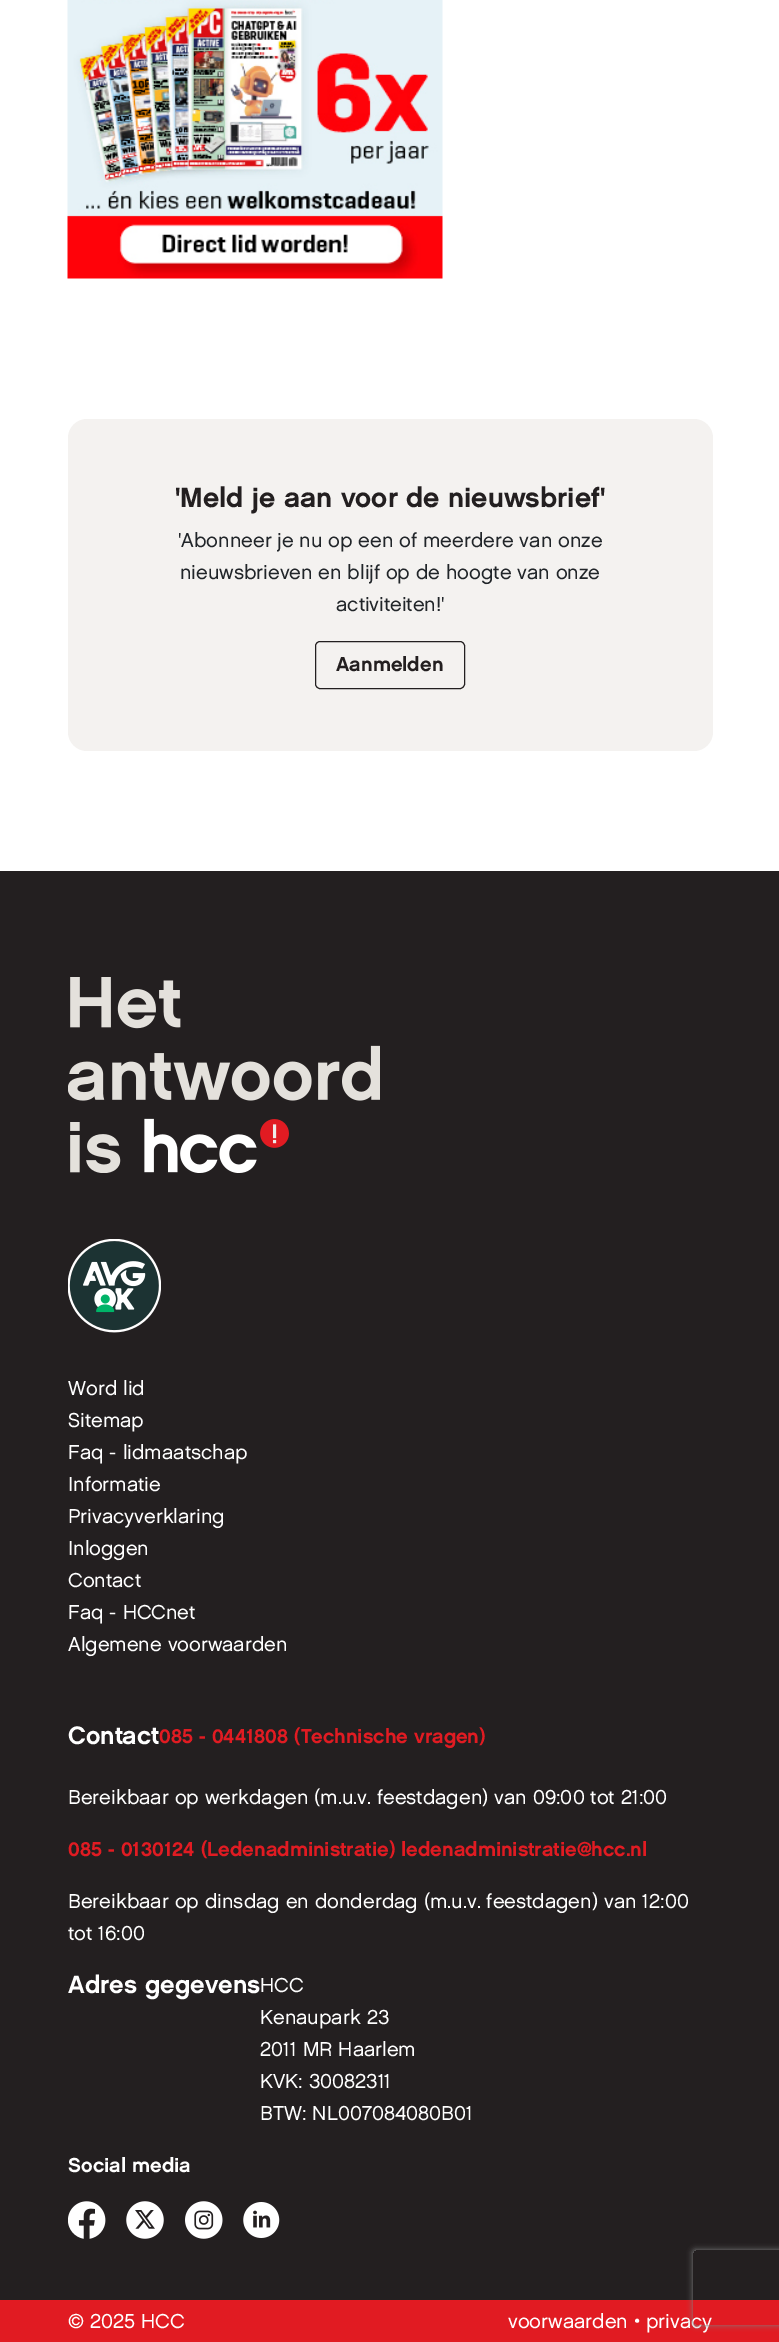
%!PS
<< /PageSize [779 2342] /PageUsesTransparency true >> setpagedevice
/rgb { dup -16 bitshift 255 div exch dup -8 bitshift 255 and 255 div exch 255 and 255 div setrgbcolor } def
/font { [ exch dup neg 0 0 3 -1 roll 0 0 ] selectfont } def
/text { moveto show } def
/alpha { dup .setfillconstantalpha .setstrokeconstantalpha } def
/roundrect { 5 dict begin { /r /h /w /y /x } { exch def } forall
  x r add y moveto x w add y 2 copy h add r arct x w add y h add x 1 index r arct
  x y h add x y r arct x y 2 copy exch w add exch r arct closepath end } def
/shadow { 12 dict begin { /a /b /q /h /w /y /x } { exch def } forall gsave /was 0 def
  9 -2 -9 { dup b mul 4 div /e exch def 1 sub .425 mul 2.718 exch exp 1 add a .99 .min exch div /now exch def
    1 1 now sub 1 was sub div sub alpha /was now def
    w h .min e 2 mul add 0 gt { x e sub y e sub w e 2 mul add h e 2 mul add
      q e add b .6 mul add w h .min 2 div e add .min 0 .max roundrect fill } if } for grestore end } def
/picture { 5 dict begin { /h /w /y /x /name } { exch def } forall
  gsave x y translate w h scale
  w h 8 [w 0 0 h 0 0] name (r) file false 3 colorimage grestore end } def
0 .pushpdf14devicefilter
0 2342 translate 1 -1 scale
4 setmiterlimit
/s1 { /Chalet-Regular 27.8 font 16#231F20 rgb } def
/s2 { /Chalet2-Regular 20 font 16#212529 rgb } def
/s3 { /Chalet-Regular 20 font 16#231F20 rgb } def
/s4 { /Chalet2-Regular 20 font 16#FFFFFF rgb } def
/s5 { /Chalet-Regular 25 font 16#FFFFFF rgb } def
/s6 { /Chalet-Regular 20 font 16#E11B22 rgb } def
/s7 { /Chalet-Regular 20 font 16#FFFFFF rgb } def
16#FFFFFF rgb
0 0 779 2342 rectfill
(pic1.raw) 67 0 376 279 picture
16#F4F2F0 rgb
68 419 645 332 19 roundrect fill
s1
('Meld je aan voor de nieuwsbrief') 175 507 text
s2
('Abonneer je nu op een of meerdere van onze) 178 547 text
(nieuwsbrieven en blijf op de hoogte van onze) 180 579 text
(activiteiten!') 336 611 text
16#231F20 rgb
315.5 641.5 149 47 4.5 roundrect stroke
s3
(Aanmelden) 336 671 text
0 871 779 1429 rectfill
(pic2.raw) 68 977 312 196 picture
(pic3.raw) 68 1239 93 94 picture
s4
(Word lid) 68 1395 text
(Sitemap) 68 1427 text
(Faq - lidmaatschap) 68 1459 text
(Informatie) 68 1491 text
(Privacyverklaring) 68 1523 text
(Inloggen) 68 1555 text
(Contact) 68 1587 text
(Faq - HCCnet) 68 1619 text
(Algemene voorwaarden) 68 1651 text
s5
(Contact) 68 1744 text
s6
(085 - 0441808 \(Technische vragen\)) 159 1743 text
s4
(Bereikbaar op werkdagen \(m.u.v. feestdagen\) van 09:00 tot 21:00) 68 1804 text
s6
(085 - 0130124 \(Ledenadministratie\) ledenadministratie@hcc.nl) 68 1856 text
s4
(Bereikbaar op dinsdag en donderdag \(m.u.v. feestdagen\) van 12:00) 68 1908 text
(tot 16:00) 68 1940 text
s5
(Adres gegevens) 68 1993 text
s4
(HCC) 260 1992 text
(Kenaupark 23) 260 2024 text
(2011 MR Haarlem) 260 2056 text
(KVK: 30082311) 260 2088 text
(BTW: NL007084080B01) 260 2120 text
s7
(Social media) 68 2172 text
(pic4.raw) 68 2201 38 38 picture
(pic5.raw) 126 2201 38 38 picture
(pic6.raw) 185 2201 38 38 picture
(pic7.raw) 243 2202 37 36 picture
16#E11B22 rgb
0 2300 779 42 rectfill
s4
(© 2025 HCC) 68 2328 text
(voorwaarden • privacy) 508 2328 text
gsave
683 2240 moveto 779 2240 lineto 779 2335 lineto 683 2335 lineto closepath 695.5 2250 moveto 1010.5 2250 lineto 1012 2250 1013 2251 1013 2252.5 curveto 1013 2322.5 lineto 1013 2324 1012 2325 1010.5 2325 curveto 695.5 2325 lineto 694 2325 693 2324 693 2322.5 curveto 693 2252.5 lineto 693 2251 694 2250 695.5 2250 curveto closepath eoclip newpath
16#808080 rgb
693 2250 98 75 2.5 3 1 shadow
grestore
.poppdf14devicefilter showpage
